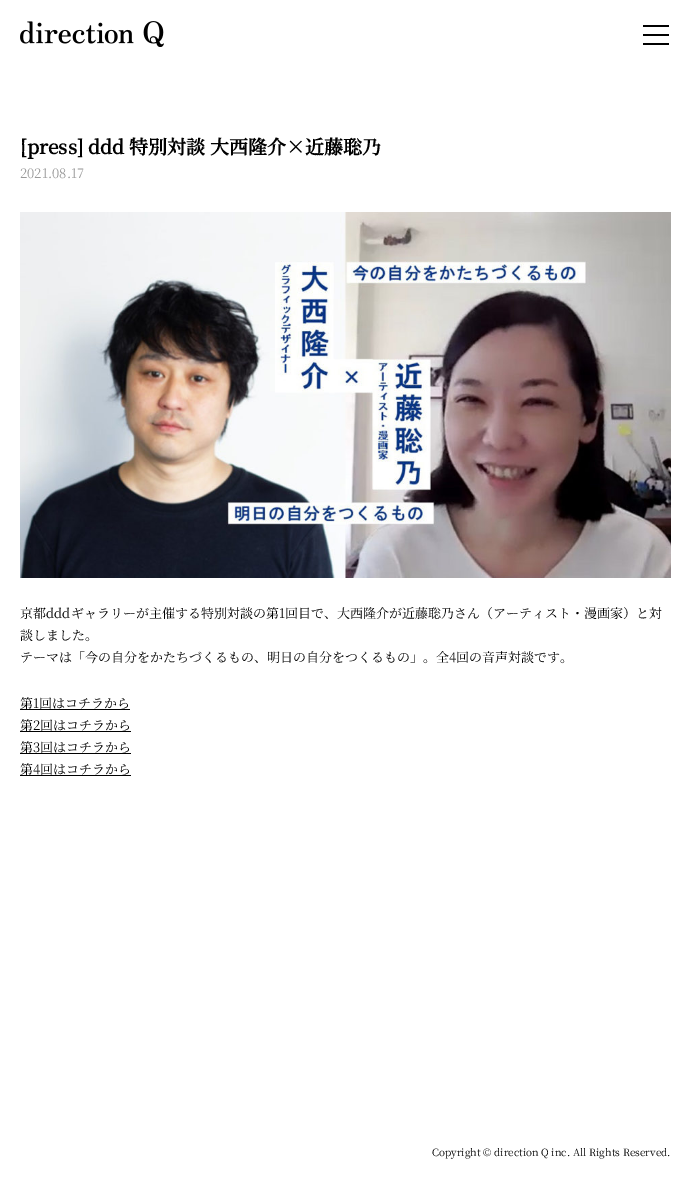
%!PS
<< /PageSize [691 1190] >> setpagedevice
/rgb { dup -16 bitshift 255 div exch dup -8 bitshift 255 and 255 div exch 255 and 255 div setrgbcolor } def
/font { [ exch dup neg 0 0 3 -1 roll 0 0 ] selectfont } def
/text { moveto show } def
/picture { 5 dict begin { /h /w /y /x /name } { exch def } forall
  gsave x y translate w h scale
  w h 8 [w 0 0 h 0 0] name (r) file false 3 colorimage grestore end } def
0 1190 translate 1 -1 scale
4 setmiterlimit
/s1 { /NotoSerifJP-Bold 19 font 16#000000 rgb } def
/s2 { /NotoSerifJP-Regular 13 font 16#999999 rgb } def
/s3 { /NotoSerifJP-Regular 13 font 16#000000 rgb } def
/s4 { /NotoSerifJP-Regular 10 font 16#000000 rgb } def
16#FFFFFF rgb
0 0 691 1190 rectfill
(pic1.raw) 20 21 144 26 picture
16#000000 rgb
643 25 26 2 rectfill
643 34 26 2 rectfill
643 43 26 2 rectfill
s1
([press] ddd 特別対談 大西隆介×近藤聡乃) 20 154 text
s2
(2021.08.17) 20 178 text
(pic2.raw) 20 212 651 366 picture
s3
(京都dddギャラリーが主催する特別対談の第1回目で、大西隆介が近藤聡乃さん（アーティスト・漫画家）と対) 20 618 text
(談しました。) 20 640 text
(テーマは「今の自分をかたちづくるもの、明日の自分をつくるもの」。全4回の音声対談です。) 20 662 text
(第1回はコチラから) 20 708 text
20 709 110 1 rectfill
(第2回はコチラから) 20 730 text
20 731 111 1 rectfill
(第3回はコチラから) 20 752 text
20 753 111 1 rectfill
(第4回はコチラから) 20 774 text
20 775 111 1 rectfill
s4
(Copyright © direction Q inc. All Rights Reserved.) 432 1156 text
showpage
